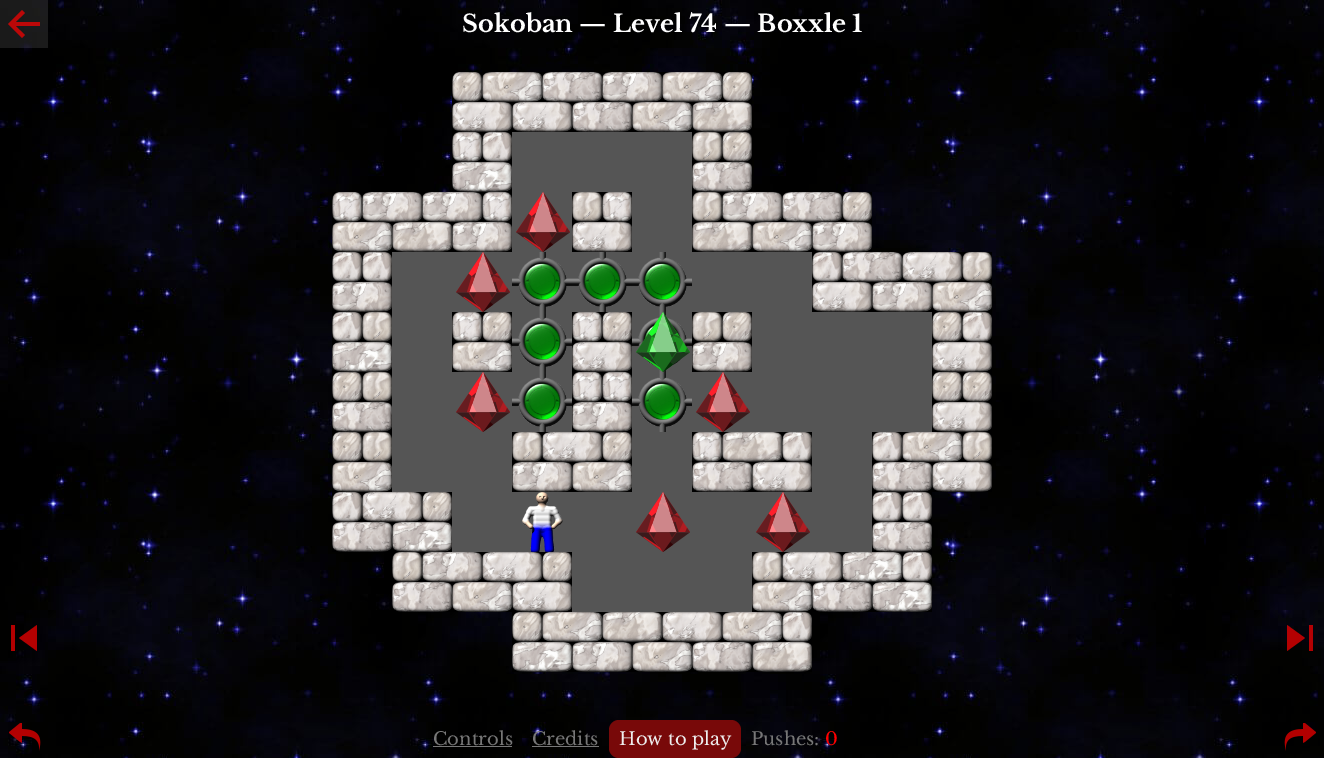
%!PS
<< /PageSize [1324 758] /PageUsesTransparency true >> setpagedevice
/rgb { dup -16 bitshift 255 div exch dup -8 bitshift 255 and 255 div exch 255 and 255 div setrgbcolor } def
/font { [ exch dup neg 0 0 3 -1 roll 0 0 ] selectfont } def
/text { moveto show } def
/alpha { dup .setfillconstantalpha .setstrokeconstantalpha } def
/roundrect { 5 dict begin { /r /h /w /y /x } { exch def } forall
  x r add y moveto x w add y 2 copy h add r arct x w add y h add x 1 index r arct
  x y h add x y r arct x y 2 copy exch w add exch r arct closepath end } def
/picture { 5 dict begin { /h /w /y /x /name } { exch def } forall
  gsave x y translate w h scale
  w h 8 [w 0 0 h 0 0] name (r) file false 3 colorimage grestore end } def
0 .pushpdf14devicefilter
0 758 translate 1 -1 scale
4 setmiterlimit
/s1 { /LibreBaskerville-Bold 24 font 16#FFFFFF rgb } def
/s2 { /LibreBaskerville-Regular 18 font 16#777777 rgb } def
/s3 { /LibreBaskerville-Regular 18 font 16#EEEEEE rgb } def
/s4 { /LibreBaskerville-Regular 18 font 16#FF0000 rgb } def
16#FFFFFF rgb
0 0 1324 758 rectfill
(pic1.raw) 0 0 1324 758 picture
0.1 alpha
0 0 48 48 rectfill
0.7 alpha
16#FF0000 rgb
22 10 moveto 8 24 lineto 22 38 lineto 25 35 lineto 15.5 26 lineto 40 26 lineto 40 22 lineto 15.5 22 lineto 25 13 lineto closepath fill
1 alpha
s1
(Sokoban — Level 74 — Boxxle 1) 462 32 text
(pic2.raw) 452 72 30 30 picture
(pic3.raw) 482 72 60 30 picture
(pic4.raw) 542 72 60 30 picture
(pic5.raw) 602 72 60 30 picture
(pic6.raw) 662 72 60 30 picture
(pic7.raw) 722 72 30 30 picture
(pic8.raw) 452 102 60 30 picture
(pic9.raw) 512 102 60 30 picture
(pic10.raw) 572 102 60 30 picture
(pic11.raw) 632 102 60 30 picture
(pic12.raw) 692 102 60 30 picture
(pic13.raw) 452 132 30 30 picture
(pic14.raw) 482 132 30 30 picture
(pic15.raw) 452 162 60 30 picture
16#555555 rgb
512 132 180 60 rectfill
(pic16.raw) 692 132 30 30 picture
(pic17.raw) 722 132 30 30 picture
(pic10.raw) 692 162 60 30 picture
(pic13.raw) 332 192 30 30 picture
(pic18.raw) 362 192 60 30 picture
(pic19.raw) 422 192 60 30 picture
(pic20.raw) 482 192 30 30 picture
(pic11.raw) 332 222 60 30 picture
(pic12.raw) 392 222 60 30 picture
(pic21.raw) 452 222 60 30 picture
512 192 60 60 rectfill
(pic22.raw) 516 192 54 60 picture
(pic16.raw) 572 192 30 30 picture
(pic13.raw) 602 192 30 30 picture
(pic9.raw) 572 222 60 30 picture
632 192 60 60 rectfill
(pic16.raw) 692 192 30 30 picture
(pic18.raw) 722 192 60 30 picture
(pic23.raw) 782 192 60 30 picture
(pic17.raw) 842 192 30 30 picture
(pic12.raw) 692 222 60 30 picture
(pic24.raw) 752 222 60 30 picture
(pic18.raw) 812 222 60 30 picture
(pic25.raw) 332 252 30 30 picture
(pic26.raw) 362 252 30 30 picture
(pic19.raw) 332 282 60 30 picture
392 252 420 60 rectfill
(pic22.raw) 456 252 54 60 picture
(pic27.raw) 512 252 60 60 picture
(pic27.raw) 572 252 60 60 picture
(pic28.raw) 632 252 60 60 picture
(pic26.raw) 812 252 30 30 picture
(pic10.raw) 842 252 60 30 picture
(pic9.raw) 902 252 60 30 picture
(pic16.raw) 962 252 30 30 picture
(pic9.raw) 812 282 60 30 picture
(pic18.raw) 872 282 60 30 picture
(pic29.raw) 932 282 60 30 picture
(pic25.raw) 332 312 30 30 picture
(pic16.raw) 362 312 30 30 picture
(pic30.raw) 332 342 60 30 picture
392 312 60 180 rectfill
(pic13.raw) 452 312 30 30 picture
(pic31.raw) 482 312 30 30 picture
(pic32.raw) 452 342 60 30 picture
512 312 60 60 rectfill
(pic27.raw) 512 312 60 60 picture
(pic33.raw) 572 312 30 30 picture
(pic34.raw) 602 312 30 30 picture
(pic9.raw) 572 342 60 30 picture
632 312 60 180 rectfill
(pic28.raw) 632 312 60 60 picture
(pic35.raw) 636 312 54 60 picture
(pic16.raw) 692 312 30 30 picture
(pic17.raw) 722 312 30 30 picture
(pic18.raw) 692 342 60 30 picture
752 312 180 60 rectfill
(pic17.raw) 932 312 30 30 picture
(pic26.raw) 962 312 30 30 picture
(pic9.raw) 932 342 60 30 picture
(pic34.raw) 332 372 30 30 picture
(pic16.raw) 362 372 30 30 picture
(pic36.raw) 332 402 60 30 picture
452 372 120 60 rectfill
(pic22.raw) 456 372 54 60 picture
(pic27.raw) 512 372 60 60 picture
(pic33.raw) 572 372 30 30 picture
(pic13.raw) 602 372 30 30 picture
(pic18.raw) 572 402 60 30 picture
(pic28.raw) 632 372 60 60 picture
692 372 240 60 rectfill
(pic22.raw) 696 372 54 60 picture
(pic17.raw) 932 372 30 30 picture
(pic17.raw) 962 372 30 30 picture
(pic9.raw) 932 402 60 30 picture
(pic34.raw) 332 432 30 30 picture
(pic16.raw) 362 432 30 30 picture
(pic11.raw) 332 462 60 30 picture
452 432 60 120 rectfill
(pic16.raw) 512 432 30 30 picture
(pic37.raw) 542 432 60 30 picture
(pic34.raw) 602 432 30 30 picture
(pic18.raw) 512 462 60 30 picture
(pic29.raw) 572 462 60 30 picture
(pic33.raw) 692 432 30 30 picture
(pic12.raw) 722 432 60 30 picture
(pic25.raw) 782 432 30 30 picture
(pic10.raw) 692 462 60 30 picture
(pic38.raw) 752 462 60 30 picture
812 432 60 60 rectfill
(pic26.raw) 872 432 30 30 picture
(pic29.raw) 902 432 60 30 picture
(pic16.raw) 962 432 30 30 picture
(pic10.raw) 872 462 60 30 picture
(pic9.raw) 932 462 60 30 picture
(pic25.raw) 332 492 30 30 picture
(pic9.raw) 362 492 60 30 picture
(pic34.raw) 422 492 30 30 picture
(pic36.raw) 332 522 60 30 picture
(pic39.raw) 392 522 60 30 picture
512 492 360 60 rectfill
(pic40.raw) 522 492 41 60 picture
(pic22.raw) 636 492 54 60 picture
(pic22.raw) 756 492 54 60 picture
(pic26.raw) 872 492 30 30 picture
(pic26.raw) 902 492 30 30 picture
(pic10.raw) 872 522 60 30 picture
(pic16.raw) 392 552 30 30 picture
(pic19.raw) 422 552 60 30 picture
(pic41.raw) 482 552 60 30 picture
(pic34.raw) 542 552 30 30 picture
(pic10.raw) 392 582 60 30 picture
(pic32.raw) 452 582 60 30 picture
(pic9.raw) 512 582 60 30 picture
572 552 180 60 rectfill
(pic42.raw) 752 552 30 30 picture
(pic37.raw) 782 552 60 30 picture
(pic39.raw) 842 552 60 30 picture
(pic26.raw) 902 552 30 30 picture
(pic24.raw) 752 582 60 30 picture
(pic10.raw) 812 582 60 30 picture
(pic39.raw) 872 582 60 30 picture
(pic17.raw) 512 612 30 30 picture
(pic43.raw) 542 612 60 30 picture
(pic44.raw) 602 612 60 30 picture
(pic45.raw) 662 612 60 30 picture
(pic29.raw) 722 612 60 30 picture
(pic25.raw) 782 612 30 30 picture
(pic46.raw) 512 642 60 30 picture
(pic47.raw) 572 642 60 30 picture
(pic48.raw) 632 642 60 30 picture
(pic49.raw) 692 642 60 30 picture
(pic50.raw) 752 642 60 30 picture
0.7 alpha
16#FF0000 rgb
37 651 moveto 19 638 lineto 37 625 lineto closepath 15 625 moveto 15 651 lineto 11 651 lineto 11 625 lineto closepath fill
1287 651 moveto 1305 638 lineto 1287 625 lineto closepath 1309 625 moveto 1309 651 lineto 1313 651 lineto 1313 625 lineto closepath fill
1 alpha
(pic51.raw) 9 723 32 28 picture
(pic52.raw) 1284 723 32 28 picture
s2
(Controls) 433 745 text
433 746 79 1 rectfill
(Credits) 532 745 text
532 746 67 1 rectfill
16#780909 rgb
609 720 132 38 10 roundrect fill
s3
(How to play) 619 745 text
s2
(Pushes:) 751 745 text
s4
(0) 825 745 text
.poppdf14devicefilter showpage
